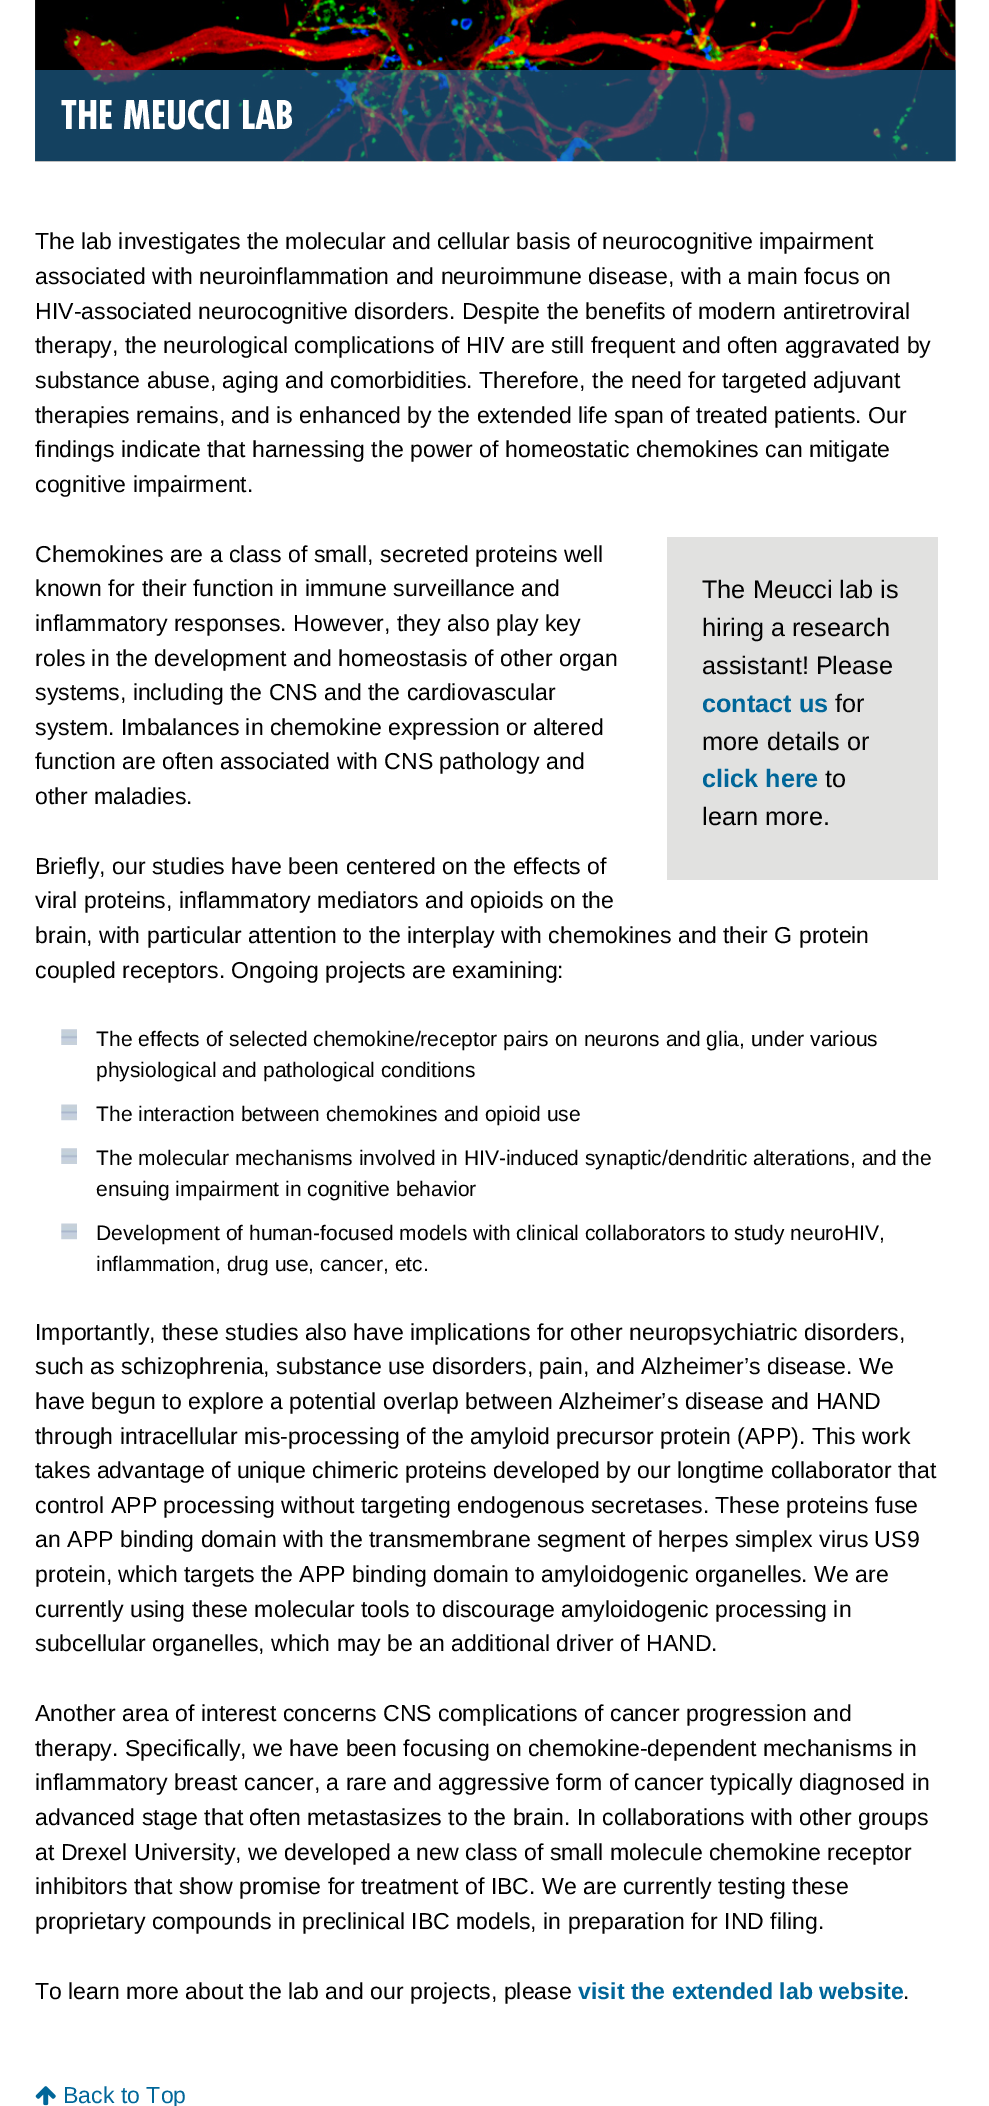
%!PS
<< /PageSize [989 2106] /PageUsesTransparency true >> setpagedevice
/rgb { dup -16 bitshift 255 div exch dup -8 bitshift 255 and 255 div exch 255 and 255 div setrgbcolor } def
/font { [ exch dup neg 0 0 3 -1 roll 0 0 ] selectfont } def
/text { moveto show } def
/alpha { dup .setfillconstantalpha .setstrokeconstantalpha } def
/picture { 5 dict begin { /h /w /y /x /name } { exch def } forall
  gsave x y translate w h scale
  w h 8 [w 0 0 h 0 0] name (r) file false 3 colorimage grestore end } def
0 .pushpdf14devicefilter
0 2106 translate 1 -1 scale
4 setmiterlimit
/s1 { /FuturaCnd-Bold 38.5 font 16#FFFFFF rgb } def
/s2 { /LiberationSans-Regular 23.1 font 16#000000 rgb } def
/s3 { /LiberationSans-Regular 25.25 font 16#000000 rgb } def
/s4 { /LiberationSans-Bold 25.25 font 16#006699 rgb } def
/s5 { /LiberationSans-Regular 21 font 16#000000 rgb } def
/s6 { /LiberationSans-Bold 23.1 font 16#006699 rgb } def
/s7 { /LiberationSans-Regular 23.1 font 16#006699 rgb } def
16#FFFFFF rgb
0 0 989 2106 rectfill
(pic1.raw) 35 0 921 162 picture
0.6 alpha
16#226DA0 rgb
35 70 921 91 rectfill
1 alpha
s1
(THE MEUCCI LAB) 61 129 text
s2
(The lab investigates the molecular and cellular basis of neurocognitive impairment) 35 249 text
(associated with neuroinflammation and neuroimmune disease, with a main focus on) 35 284 text
(HIV-associated neurocognitive) 35 319 text
(disorders. Despite the benefits of modern antiretroviral) 354 319 text
(therapy, the neurological complications of HIV are still frequent and often aggravated by) 35 353 text
(substance abuse, aging and comorbidities. Therefore, the need for targeted adjuvant) 35 388 text
(therapies remains, and is enhanced by the extended life span of treated patients. Our) 35 423 text
(findings indicate that harnessing the power of homeostatic chemokines can mitigate) 35 457 text
(cognitive impairment.) 35 492 text
(Chemokines are a class of small, secreted proteins well) 35 562 text
(known for their function in immune surveillance and) 35 596 text
(inflammatory responses. However, they also play key) 35 631 text
(roles in the development and homeostasis of other organ) 35 666 text
(systems, including the CNS and) 35 700 text
(the cardiovascular) 368 700 text
(system. Imbalances in chemokine expression or altered) 35 735 text
(function are often associated with CNS pathology and) 35 769 text
(other maladies.) 35 804 text
16#E1E1E0 rgb
667 537 271 343 rectfill
s3
(The Meucci lab is) 702 598 text
(hiring a research) 702 636 text
(assistant! Please) 702 674 text
s4
(contact us) 702 712 text
s3
(for) 835 712 text
(more details or) 702 750 text
s4
(click here) 702 787 text
s3
(to) 825 787 text
(learn more.) 702 825 text
s2
(Briefly, our studies have been centered on the effects of) 35 874 text
(viral proteins, inflammatory mediators and opioids on the) 35 908 text
(brain, with particular attention to the interplay with chemokines and their G protein) 35 943 text
(coupled receptors. Ongoing projects are examining:) 35 978 text
(pic2.raw) 61 1029 16 16 picture
s5
(The effects of selected chemokine/receptor pairs on neurons and glia, under various) 96 1046 text
(physiological and pathological conditions) 96 1077 text
(pic3.raw) 61 1104 16 17 picture
(The interaction between chemokines and opioid use) 96 1121 text
(pic2.raw) 61 1148 16 16 picture
(The molecular mechanisms involved in HIV-induced synaptic/dendritic alterations, and the) 96 1165 text
(ensuing impairment in cognitive behavior) 96 1196 text
(pic3.raw) 61 1223 16 17 picture
(Development of human-focused models with clinical collaborators to study neuroHIV,) 96 1240 text
(inflammation, drug use, cancer, etc.) 96 1271 text
s2
(Importantly, these studies also have implications for other neuropsychiatric disorders,) 35 1340 text
(such as schizophrenia, substance use disorders, pain, and Alzheimer’s disease. We) 35 1374 text
(have begun to explore a potential overlap between Alzheimer’s disease and HAND) 35 1409 text
(through intracellular mis-processing of the amyloid precursor protein \(APP\). This work) 35 1444 text
(takes advantage of unique chimeric proteins developed by our longtime collaborator that) 35 1478 text
(control APP processing without targeting endogenous secretases. These proteins fuse) 35 1513 text
(an APP binding domain with the transmembrane segment of herpes simplex virus US9) 35 1547 text
(protein, which targets the APP binding domain to amyloidogenic organelles. We are) 35 1582 text
(currently using these molecular tools to discourage amyloidogenic processing in) 35 1617 text
(subcellular organelles, which may be an additional driver of HAND.) 35 1651 text
(Another area of interest concerns CNS complications of cancer progression and) 35 1721 text
(therapy. Specifically, we have been focusing on chemokine-dependent mechanisms in) 35 1756 text
(inflammatory breast cancer, a rare and aggressive form of cancer typically diagnosed in) 35 1790 text
(advanced stage that often metastasizes to the brain. In collaborations with other groups) 35 1825 text
(at Drexel University, we developed a new class of small) 35 1860 text
(molecule chemokine receptor) 610 1860 text
(inhibitors that show promise for treatment of IBC. We are currently testing these) 35 1894 text
(proprietary compounds in preclinical IBC models, in preparation for IND filing.) 35 1929 text
(To learn more about the lab and our projects, please) 35 1999 text
s6
(visit the extended lab website) 578 1999 text
s2
(.) 903 1999 text
(pic4.raw) 35 2086 21 20 picture
s7
(Back to Top) 63 2103 text
.poppdf14devicefilter showpage
